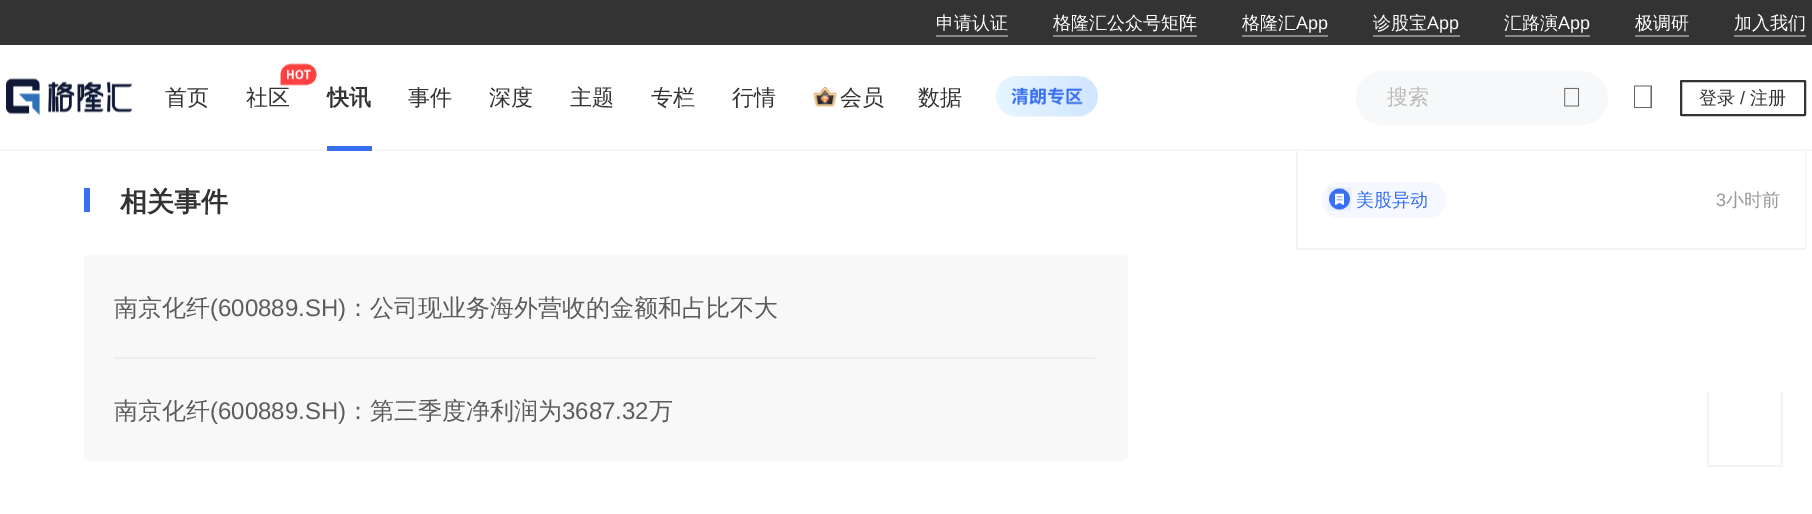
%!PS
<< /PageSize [1812 514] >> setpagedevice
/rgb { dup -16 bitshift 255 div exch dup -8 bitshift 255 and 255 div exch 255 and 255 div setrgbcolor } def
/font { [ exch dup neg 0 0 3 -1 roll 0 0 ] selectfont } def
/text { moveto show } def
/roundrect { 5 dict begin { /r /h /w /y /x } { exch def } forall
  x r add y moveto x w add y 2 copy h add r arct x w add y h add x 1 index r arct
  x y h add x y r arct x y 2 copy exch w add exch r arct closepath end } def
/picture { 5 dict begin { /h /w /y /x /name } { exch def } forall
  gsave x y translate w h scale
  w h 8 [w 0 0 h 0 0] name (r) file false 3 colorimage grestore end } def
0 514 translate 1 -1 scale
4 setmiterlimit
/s1 { /WenQuanYiZenHei-Medium 18 font 16#FFFFFF rgb } def
/s2 { /LiberationSans-Regular 18 font 16#FFFFFF rgb } def
/s3 { /WenQuanYiZenHei-Medium 22 font 16#333333 rgb } def
/s4 { /WenQuanYiZenHei-Bold 22 font 16#333333 rgb } def
/s5 { /WenQuanYiZenHei-Medium 21 font 16#BBBBBB rgb } def
/s6 { /WenQuanYiZenHei-Medium 18 font 16#333333 rgb } def
/s7 { /LiberationSans-Regular 18 font 16#333333 rgb } def
/s8 { /WenQuanYiZenHei-Bold 27 font 16#333333 rgb } def
/s9 { /WenQuanYiZenHei-Medium 24 font 16#5C5C5C rgb } def
/s10 { /LiberationSans-Regular 24 font 16#5C5C5C rgb } def
/s11 { /WenQuanYiZenHei-Medium 18 font 16#386FF2 rgb } def
/s12 { /LiberationSans-Regular 18 font 16#999999 rgb } def
/s13 { /WenQuanYiZenHei-Medium 18 font 16#999999 rgb } def
16#FFFFFF rgb
0 0 1812 514 rectfill
16#333333 rgb
0 0 1812 45 rectfill
s1
(申请认证) 936 29 text
16#878787 rgb
936 35 72 2 rectfill
s1
(格隆汇公众号矩阵) 1053 29 text
16#878787 rgb
1053 35 144 2 rectfill
s1
(格隆汇) 1242 29 text
s2
(App) 1296 29 text
16#878787 rgb
1242 35 86 2 rectfill
s1
(诊股宝) 1373 29 text
s2
(App) 1427 29 text
16#878787 rgb
1373 35 87 2 rectfill
s1
(汇路演) 1504 29 text
s2
(App) 1558 29 text
16#878787 rgb
1505 35 85 2 rectfill
s1
(极调研) 1635 29 text
16#878787 rgb
1635 35 54 2 rectfill
s1
(加入我们) 1734 29 text
16#878787 rgb
1734 35 72 2 rectfill
16#F6F6F6 rgb
0 149 1812 2 rectfill
(pic1.raw) 6 78 126 38 picture
s3
(首页) 165 105 text
(pic2.raw) 280 63 37 23 picture
(社区) 246 105 text
s4
(快讯) 327 105 text
16#386FF2 rgb
327 146 45 5 rectfill
s3
(事件) 408 105 text
(深度) 489 105 text
(主题) 570 105 text
(专栏) 651 105 text
(行情) 732 105 text
(pic3.raw) 813 87 24 20 picture
(会员) 840 105 text
(数据) 918 105 text
(pic4.raw) 996 76 102 41 picture
16#F7F8F9 rgb
1356 71 252 54 27 roundrect fill
s5
(搜索) 1387 104 text
(pic5.raw) 1564 87 16 20 picture
16#666666 rgb
1634 85.5 moveto 1652 85.5 lineto 1652 108 lineto 1634 108 lineto closepath 1635 86.5 moveto 1635 107 lineto 1650.5 107 lineto 1650.5 86.5 lineto closepath fill
16#333333 rgb
2 setlinewidth
1681 81 124 34 0.5 roundrect stroke
s6
(登录) 1699 104 text
s7
(/) 1740 104 text
s6
(注册) 1750 104 text
16#386FF2 rgb
84 188 6 24 rectfill
s8
(相关事件) 120 211 text
16#F8F8F8 rgb
84 255 1044 206 6 roundrect fill
16#EDEDED rgb
114 357 981 2 rectfill
s9
(南京化纤) 114 316 text
s10
(\(600889.SH\)) 210 316 text
s9
(：公司现业务海外营收的金额和占比不大) 346 316 text
(南京化纤) 114 419 text
s10
(\(600889.SH\)) 210 419 text
s9
(：第三季度净利润为) 346 419 text
s10
(3687.32) 562 419 text
s9
(万) 649 419 text
16#F1F3F7 rgb
1805 151 1 98 rectfill
1296 248 510 2 rectfill
1296 151 2 98 rectfill
16#F5F8FE rgb
1322 182 124 36 18 roundrect fill
(pic6.raw) 1327 187 25 24 picture
s11
(美股异动) 1356 206 text
s12
(3) 1716 206 text
s13
(小时前) 1726 206 text
16#F1F3F7 rgb
1781 392 2 75 rectfill
1707 465 75 2 rectfill
1707 392 2 75 rectfill
showpage
